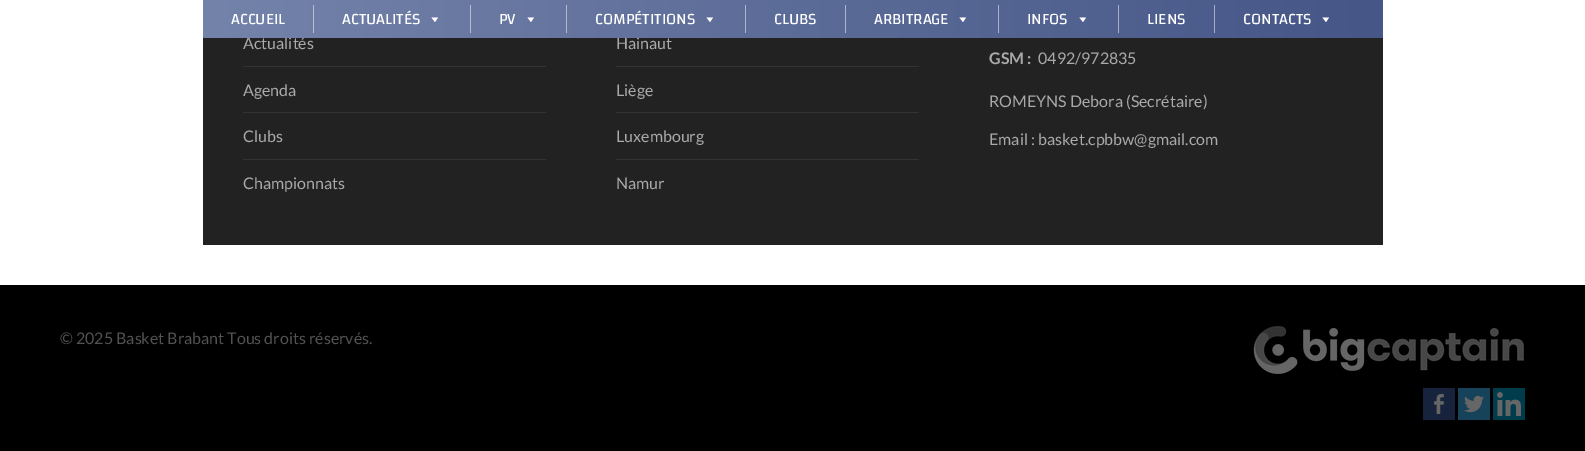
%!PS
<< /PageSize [1585 451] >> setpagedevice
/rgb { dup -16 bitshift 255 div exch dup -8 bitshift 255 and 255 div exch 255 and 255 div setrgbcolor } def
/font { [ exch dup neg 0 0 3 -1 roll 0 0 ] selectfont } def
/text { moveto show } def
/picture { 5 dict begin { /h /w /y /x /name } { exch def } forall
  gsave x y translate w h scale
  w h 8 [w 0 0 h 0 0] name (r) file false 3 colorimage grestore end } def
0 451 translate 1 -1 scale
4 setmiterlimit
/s1 { /Lato-Regular 16 font 16#AAAAAA rgb } def
/s2 { /Changa-Regular 16 font 16#FFFFFF rgb } def
/s3 { /Lato-Bold 16 font 16#AAAAAA rgb } def
/s4 { /Lato-Regular 16 font 16#525252 rgb } def
16#FFFFFF rgb
0 0 1585 451 rectfill
16#222222 rgb
203 38 1180 207 rectfill
s1
(Actualités) 243 49 text
(Hainaut) 616 49 text
gsave 203 0 moveto 1383 0 lineto 1383 38 lineto 203 38 lineto closepath clip newpath
<< /ShadingType 2 /ColorSpace /DeviceRGB /Coords [203 19 1383 19] /Extend [true true] /Function << /FunctionType 2 /Domain [0 1] /C0 [0.451 0.514 0.667] /C1 [0.271 0.337 0.529] /N 1 >> >> shfill grestore
16#B7BFD3 rgb
313 5 1 28 rectfill
s2
(ACCUEIL) 231 24 text
16#B4BCD1 rgb
470 5 1 28 rectfill
s2
(ACTUALITÉS) 342 24 text
438 17.5 moveto 435 22 lineto 431.5 17.5 lineto closepath fill
16#B2BACF rgb
566 5 1 28 rectfill
s2
(PV) 499 24 text
534 17.5 moveto 531 22 lineto 527.5 17.5 lineto closepath fill
16#AFB7CD rgb
745 5 1 28 rectfill
s2
(COMPÉTITIONS) 595 24 text
713 17.5 moveto 710 22 lineto 706.5 17.5 lineto closepath fill
16#ADB5CB rgb
845 5 1 28 rectfill
s2
(CLUBS) 774 24 text
16#AAB2C9 rgb
998 5 1 28 rectfill
s2
(ARBITRAGE) 874 24 text
966 17.5 moveto 963 22 lineto 959.5 17.5 lineto closepath fill
16#A7B0C7 rgb
1118 5 1 28 rectfill
s2
(INFOS) 1027 24 text
1086 17.5 moveto 1083 22 lineto 1079.5 17.5 lineto closepath fill
16#A6AEC6 rgb
1214 5 1 28 rectfill
s2
(LIENS) 1147 24 text
(CONTACTS) 1243 24 text
1329 17.5 moveto 1326 22 lineto 1322.5 17.5 lineto closepath fill
16#333333 rgb
243 66 303 1 rectfill
s1
(Agenda) 243 96 text
16#333333 rgb
243 112 303 1 rectfill
s1
(Clubs) 243 142 text
16#333333 rgb
243 159 303 1 rectfill
s1
(Championnats) 243 189 text
16#333333 rgb
616 66 303 1 rectfill
s1
(Liège) 616 96 text
16#333333 rgb
616 112 303 1 rectfill
s1
(Luxembourg) 616 142 text
16#333333 rgb
616 159 303 1 rectfill
s1
(Namur) 616 189 text
s3
(GSM :) 989 64 text
s1
(0492/972835) 1038 64 text
(ROMEYNS Debora \(Secrétaire\)) 989 107 text
(Email : basket.cpbbw@gmail.com) 989 145 text
16#000000 rgb
0 285 1585 166 rectfill
s4
(© 2025 Basket Brabant Tous droits réservés.) 60 344 text
(pic1.raw) 1253 326 271 48 picture
(pic2.raw) 1423 388 32 32 picture
(pic3.raw) 1458 388 32 32 picture
(pic4.raw) 1493 388 32 32 picture
showpage
